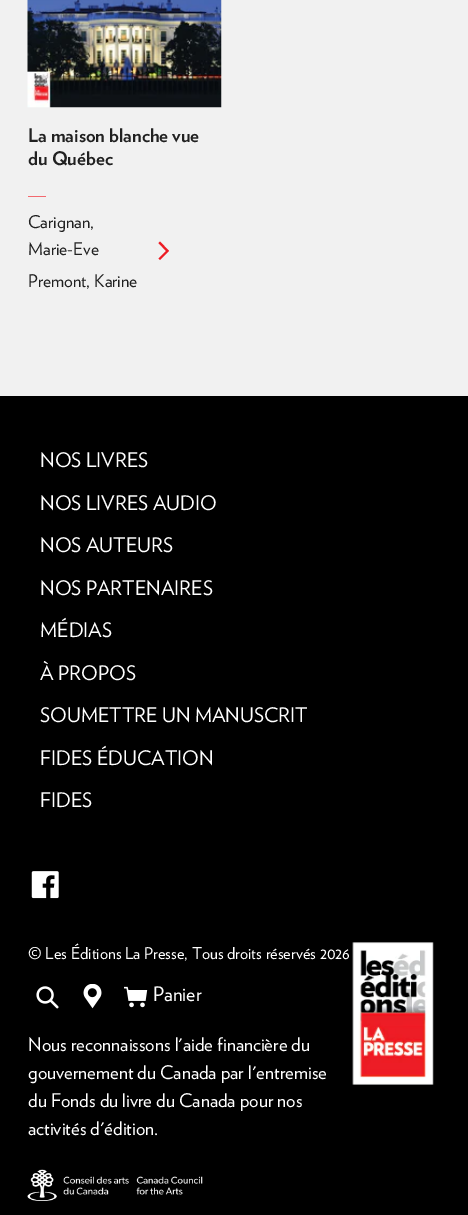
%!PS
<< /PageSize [468 1215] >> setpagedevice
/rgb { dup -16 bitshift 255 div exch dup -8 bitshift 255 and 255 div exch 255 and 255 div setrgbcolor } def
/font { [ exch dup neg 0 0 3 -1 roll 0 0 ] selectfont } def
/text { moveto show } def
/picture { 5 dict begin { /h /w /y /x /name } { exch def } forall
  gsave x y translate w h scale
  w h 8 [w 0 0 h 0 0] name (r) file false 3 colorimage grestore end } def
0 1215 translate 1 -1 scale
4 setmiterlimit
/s1 { /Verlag-Bold 18.75 font 16#212121 rgb } def
/s2 { /Verlag-Regular 17.5 font 16#212121 rgb } def
/s3 { /Verlag-Regular 20 font 16#FFFFFF rgb } def
/s4 { /Verlag-Regular 16.25 font 16#FFFFFF rgb } def
/s5 { /Verlag-Regular 18.75 font 16#FFFFFF rgb } def
16#F1F1F1 rgb
0 0 468 1215 rectfill
(pic1.raw) 27 0 195 108 picture
s1
(La maison blanche vue) 28 142 text
(du Québec) 28 165 text
16#F3696F rgb
28 196 18 1 rectfill
s2
(Carignan,) 28 228 text
(Marie-Eve) 28 255 text
(Premont, Karine) 28 287 text
16#ED1C24 rgb
160 241.5 moveto 158.5 243 lineto 166 251 lineto 158.5 258.5 lineto 160 260 lineto 169 251 lineto closepath fill
16#000000 rgb
0 396 468 819 rectfill
s3
(NOS LIVRES) 40 467 text
(NOS LIVRES AUDIO) 40 510 text
(NOS AUTEURS) 40 552 text
(NOS PARTENAIRES) 40 595 text
(MÉDIAS) 40 637 text
(À PROPOS) 40 680 text
(SOUMETTRE UN MANUSCRIT) 40 722 text
(FIDES ÉDUCATION) 40 765 text
(FIDES) 40 807 text
(pic2.raw) 31 871 28 28 picture
s4
(© Les Éditions La Presse, Tous droits réservés 2026) 28 959 text
(pic3.raw) 352 942 82 143 picture
(pic4.raw) 36 986 23 23 picture
(pic5.raw) 83 984 19 25 picture
(pic6.raw) 124 986 24 22 picture
s3
(Panier) 153 1001 text
s5
(Nous reconnaissons l'aide financière du) 28 1051 text
(gouvernement du Canada par l'entremise) 28 1079 text
(du Fonds du livre du Canada pour nos) 28 1107 text
(activités d'édition.) 28 1135 text
(pic7.raw) 27 1169 176 32 picture
showpage
